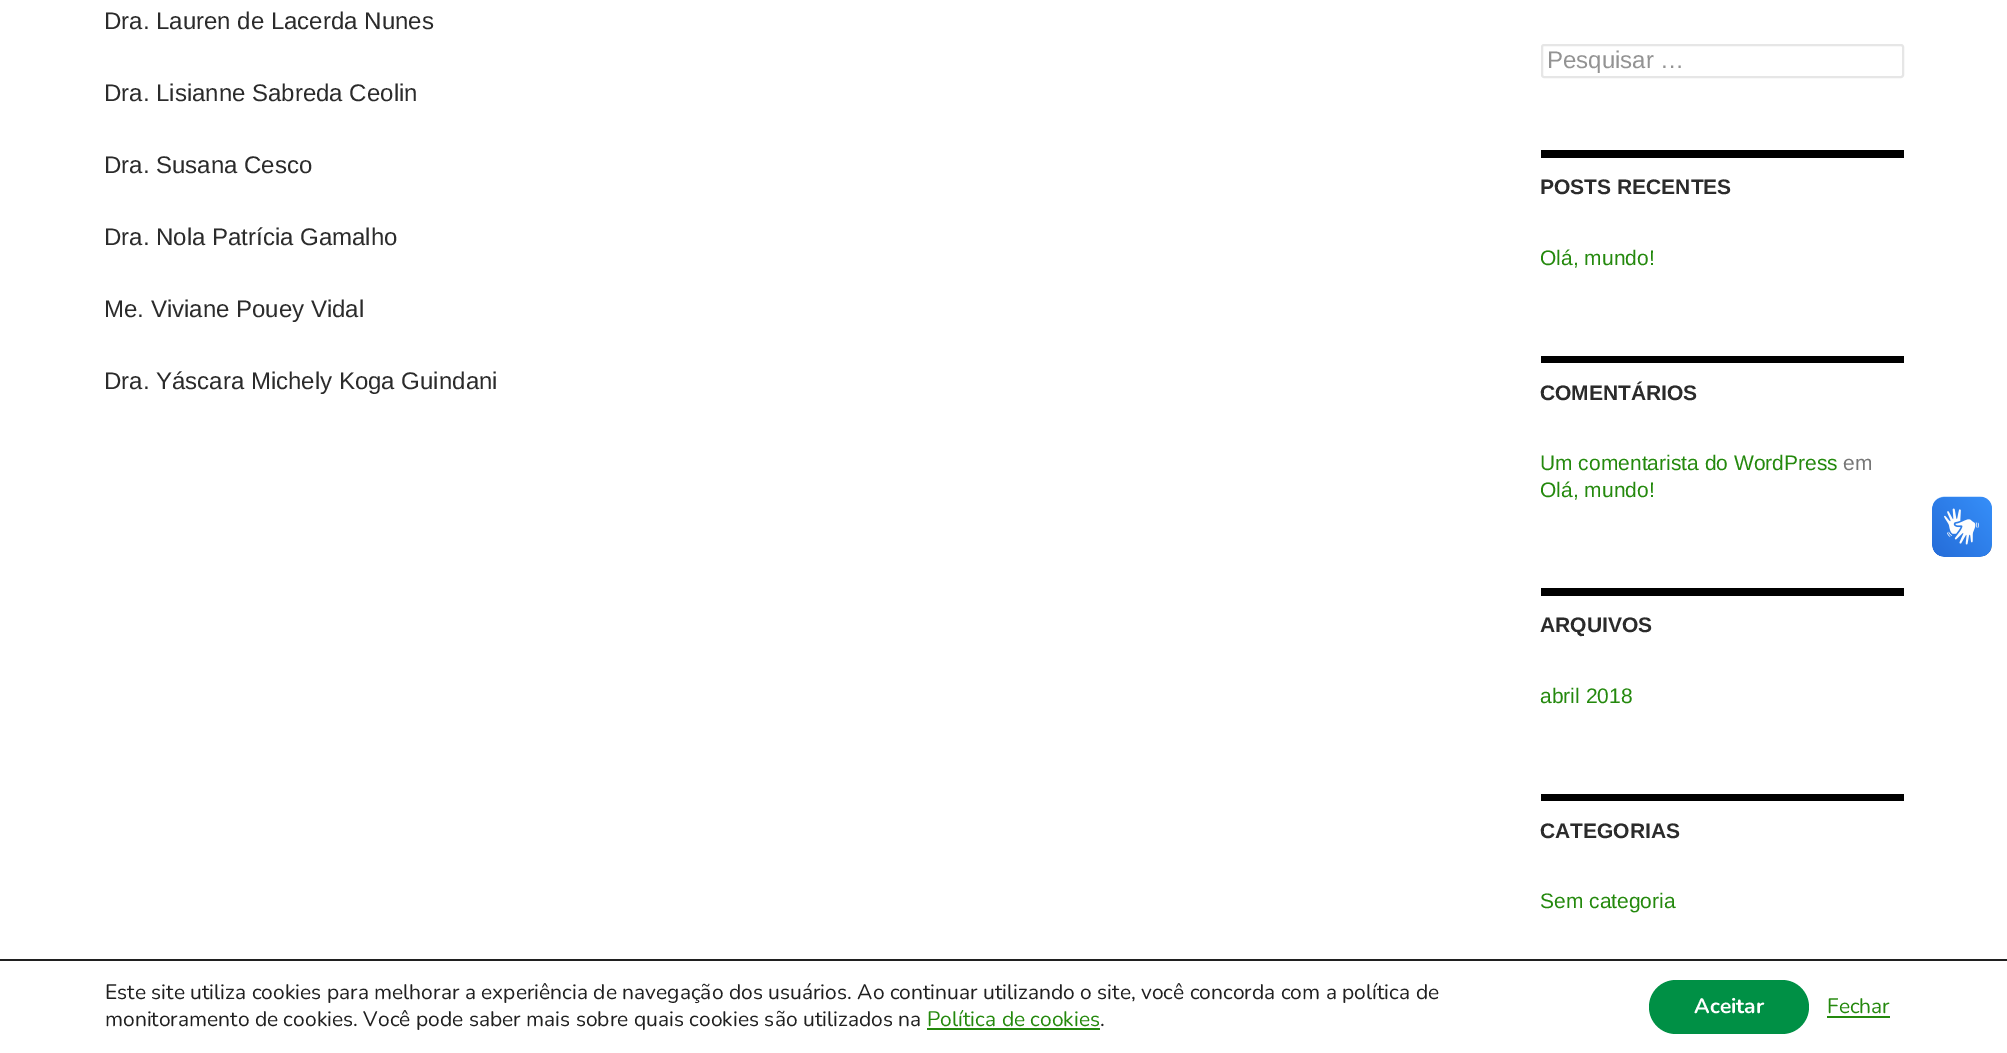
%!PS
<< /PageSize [2007 1053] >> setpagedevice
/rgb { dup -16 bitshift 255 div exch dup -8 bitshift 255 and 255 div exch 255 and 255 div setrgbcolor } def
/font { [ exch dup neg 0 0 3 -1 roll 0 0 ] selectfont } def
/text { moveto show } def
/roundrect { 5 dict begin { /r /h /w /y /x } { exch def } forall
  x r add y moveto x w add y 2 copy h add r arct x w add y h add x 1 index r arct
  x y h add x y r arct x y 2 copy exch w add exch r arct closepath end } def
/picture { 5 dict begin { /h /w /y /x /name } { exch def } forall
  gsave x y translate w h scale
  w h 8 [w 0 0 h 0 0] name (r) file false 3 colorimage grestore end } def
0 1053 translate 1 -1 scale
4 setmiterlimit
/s1 { /LiberationSans-Regular 24 font 16#2B2B2B rgb } def
/s2 { /LiberationSans-Regular 24 font 16#939393 rgb } def
/s3 { /LiberationSans-Bold 21 font 16#2B2B2B rgb } def
/s4 { /LiberationSans-Regular 21 font 16#24890D rgb } def
/s5 { /LiberationSans-Regular 21 font 16#767676 rgb } def
/s6 { /Nunito-Regular 21 font 16#202020 rgb } def
/s7 { /Nunito-Regular 21 font 16#24890D rgb } def
/s8 { /Nunito-Bold 21 font 16#FFFFFF rgb } def
16#FFFFFF rgb
0 0 2007 1053 rectfill
s1
(Dra. Lauren de Lacerda Nunes) 104 29 text
(Dra. Lisianne Sabreda Ceolin) 104 101 text
(Dra. Susana Cesco) 104 173 text
(Dra. Nola Patrícia Gamalho) 104 245 text
(Me. Viviane Pouey Vidal) 104 317 text
(Dra. Yáscara Michely Koga Guindani) 104 389 text
16#E6E6E6 rgb
2 setlinewidth
1542 45 361 32 2 roundrect stroke
s2
(Pesquisar …) 1547 68 text
16#000000 rgb
1541 150 363 8 rectfill
s3
(POSTS RECENTES) 1540 194 text
s4
(Olá, mundo!) 1540 265 text
16#000000 rgb
1541 356 363 7 rectfill
s3
(COMENTÁRIOS) 1540 400 text
s4
(Um comentarista do WordPress) 1540 470 text
s5
(em) 1843 470 text
s4
(Olá, mundo!) 1540 497 text
16#000000 rgb
1541 588 363 8 rectfill
s3
(ARQUIVOS) 1540 632 text
s4
(abril 2018) 1540 703 text
16#000000 rgb
1541 794 363 7 rectfill
s3
(CATEGORIAS) 1540 838 text
s4
(Sem categoria) 1540 908 text
(pic1.raw) 1932 496 60 61 picture
(pic2.raw) 1932 497 60 60 picture
16#202020 rgb
0 959 2007 2 rectfill
s6
(Este site utiliza cookies para melhorar a experiência de navegação dos usuários. Ao continuar utilizando o site, você concorda com a política de) 105 999 text
(monitoramento de cookies. Você pode saber mais sobre quais cookies são utilizados na) 105 1026 text
s7
(Política de cookies) 927 1026 text
927 1028 173 2 rectfill
s6
(.) 1100 1026 text
16#009045 rgb
1649 980 160 54 27 roundrect fill
s8
(Aceitar) 1694 1013 text
s7
(Fechar) 1827 1013 text
1827 1016 63 2 rectfill
showpage
